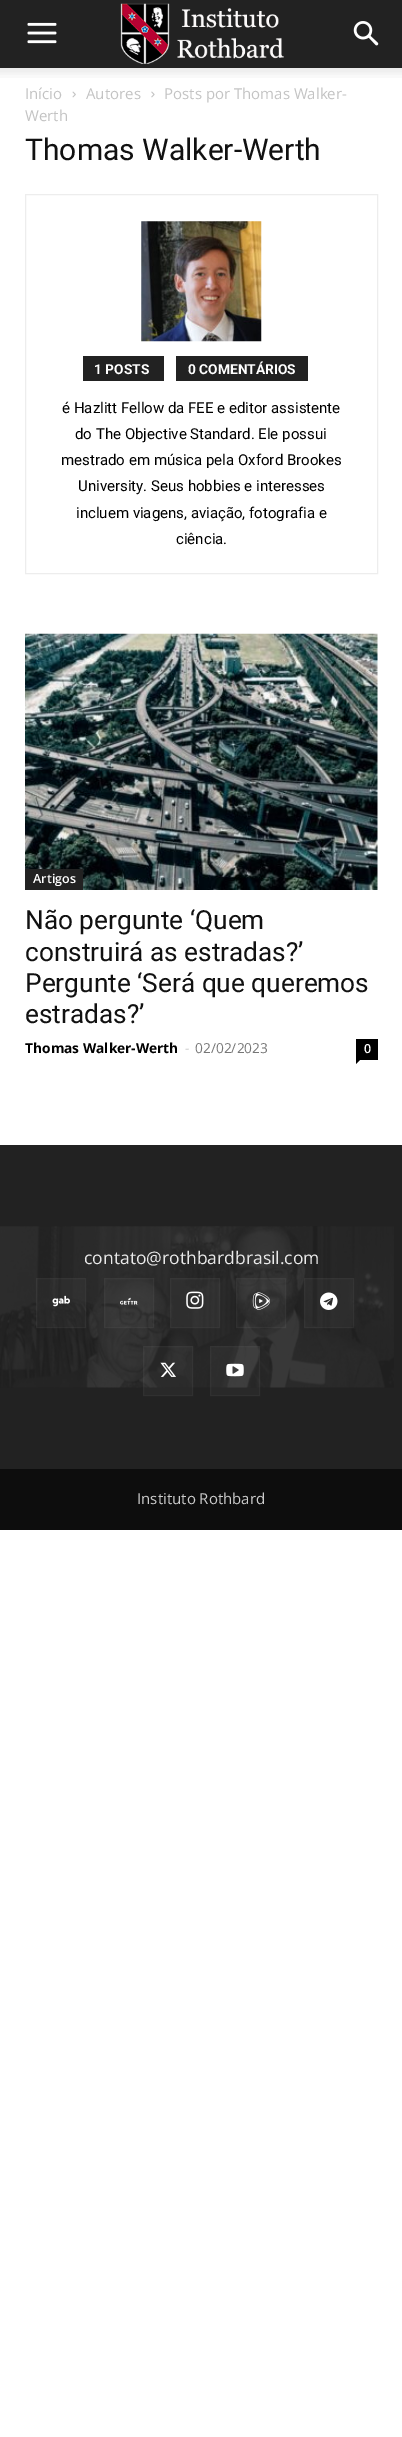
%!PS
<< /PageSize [402 2437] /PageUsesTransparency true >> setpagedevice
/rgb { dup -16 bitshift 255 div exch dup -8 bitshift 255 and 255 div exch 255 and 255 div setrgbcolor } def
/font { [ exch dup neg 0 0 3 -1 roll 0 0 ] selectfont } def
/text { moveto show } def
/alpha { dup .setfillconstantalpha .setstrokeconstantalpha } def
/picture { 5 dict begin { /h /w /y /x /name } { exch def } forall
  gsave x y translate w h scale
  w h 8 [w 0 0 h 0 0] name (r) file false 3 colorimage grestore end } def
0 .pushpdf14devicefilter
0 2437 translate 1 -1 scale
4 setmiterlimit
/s1 { /OpenSans-Regular 15 font 16#C3C3C3 rgb } def
/s2 { /Roboto-Regular 30 font 16#111111 rgb } def
/s3 { /Roboto-Bold 13.75 font 16#FFFFFF rgb } def
/s4 { /Roboto-Regular 15 font 16#000000 rgb } def
/s5 { /OpenSans-SemiBold 12.5 font 16#FFFFFF rgb } def
/s6 { /Roboto-Regular 26.25 font 16#111111 rgb } def
/s7 { /OpenSans-Bold 13.75 font 16#000000 rgb } def
/s8 { /OpenSans-Regular 13.75 font 16#CCCCCC rgb } def
/s9 { /OpenSans-Regular 13.75 font 16#767676 rgb } def
/s10 { /OpenSans-Regular 17.5 font 16#EAEAEA rgb } def
/s11 { /OpenSans-Regular 15 font 16#CCCCCC rgb } def
16#FFFFFF rgb
0 0 402 2437 rectfill
16#222222 rgb
0 0 402 68 rectfill
(pic1.raw) 27 22 30 22 picture
(pic2.raw) 120 3 164 61 picture
(pic3.raw) 353 21 26 25 picture
(pic4.raw) 0 68 402 10 picture
s1
(Início) 25 99 text
(pic5.raw) 72 91 4 7 picture
(Autores) 86 99 text
(pic6.raw) 151 91 4 7 picture
(Posts por Thomas Walker-) 164 99 text
(Werth) 25 121 text
s2
(Thomas Walker-Werth) 25 160 text
16#EDEDED rgb
25.5 194.5 352 379 rectstroke
(pic7.raw) 141 221 121 121 picture
16#222222 rgb
83 356 81 25 rectfill
s3
(1 POSTS) 94 374 text
16#222222 rgb
176 356 132 25 rectfill
s3
(0 COMENTÁRIOS) 188 374 text
s4
(é Hazlitt Fellow da FEE e editor assistente) 62 413 text
(do The Objective Standard. Ele possui) 75 439 text
(mestrado em música pela Oxford Brookes) 61 465 text
(University. Seus hobbies e interesses) 78 491 text
(incluem viagens, aviação, fotografia e) 76 518 text
(ciência.) 176 544 text
(pic8.raw) 25 633 353 257 picture
16#222222 rgb
25 869 58 21 rectfill
s5
(Artigos) 33 883 text
s6
(Não pergunte ‘Quem) 25 929 text
(construirá as estradas?’) 25 961 text
(Pergunte ‘Será que queremos) 25 992 text
(estradas?’) 25 1023 text
s7
(Thomas Walker-Werth) 25 1053 text
s8
(-) 185 1053 text
s9
(02/02/2023) 195 1053 text
16#000000 rgb
356 1039 22 21 rectfill
s5
(0) 364 1053 text
16#000000 rgb
356 1060 moveto 360 1060 lineto 356 1064 lineto closepath fill
16#222222 rgb
0 1145 402 324 rectfill
(pic9.raw) 0 1226 394 162 picture
s10
(contato@rothbardbrasil.com) 84 1264 text
0.03 alpha
16#FFFFFF rgb
36 1278 50 50 rectfill
1 alpha
(pic10.raw) 52 1295 18 12 picture
0.03 alpha
36.5 1278.5 49 49 rectstroke
104 1278 50 50 rectfill
1 alpha
(pic11.raw) 120 1297 18 8 picture
0.03 alpha
104.5 1278.5 49 49 rectstroke
170 1278 50 50 rectfill
1 alpha
(pic12.raw) 186 1291 18 18 picture
0.03 alpha
170.5 1278.5 49 49 rectstroke
236 1278 50 50 rectfill
1 alpha
(pic13.raw) 252 1292 18 18 picture
0.03 alpha
236.5 1278.5 49 49 rectstroke
304 1278 50 50 rectfill
1 alpha
(pic14.raw) 320 1292 18 18 picture
0.03 alpha
304.5 1278.5 49 49 rectstroke
143 1346 50 50 rectfill
1 alpha
(pic15.raw) 160 1362 16 15 picture
0.03 alpha
143.5 1346.5 49 49 rectstroke
210 1346 50 50 rectfill
1 alpha
(pic16.raw) 226 1363 18 14 picture
0.03 alpha
210.5 1346.5 49 49 rectstroke
1 alpha
16#0D0D0D rgb
0 1469 402 61 rectfill
s11
(Instituto Rothbard) 137 1504 text
.poppdf14devicefilter showpage
